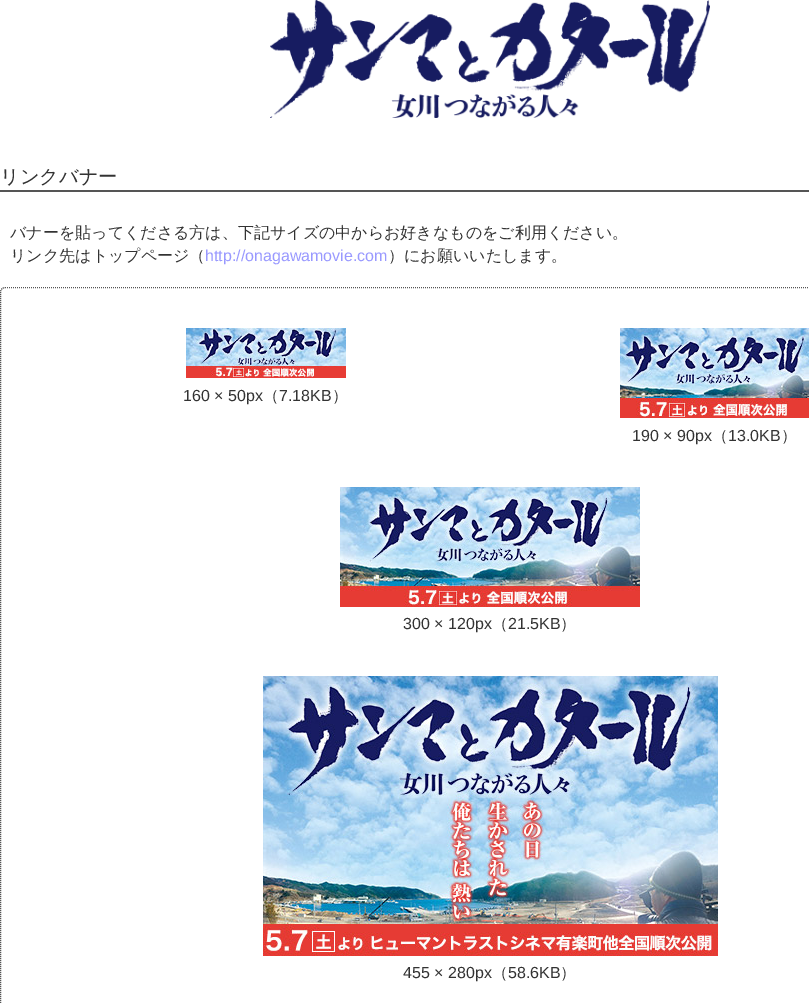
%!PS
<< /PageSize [809 1003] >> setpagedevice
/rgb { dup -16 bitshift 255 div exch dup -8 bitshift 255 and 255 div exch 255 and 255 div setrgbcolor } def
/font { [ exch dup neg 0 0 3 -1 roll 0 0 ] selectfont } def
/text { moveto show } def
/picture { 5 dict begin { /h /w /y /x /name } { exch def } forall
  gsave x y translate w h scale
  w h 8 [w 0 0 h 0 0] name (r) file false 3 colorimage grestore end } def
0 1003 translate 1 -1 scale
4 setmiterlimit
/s1 { /WenQuanYiZenHei-Medium 19.25 font 16#333333 rgb } def
/s2 { /WenQuanYiZenHei-Medium 16 font 16#333333 rgb } def
/s3 { /LiberationSans-Regular 16 font 16#9999FF rgb } def
/s4 { /LiberationSans-Regular 16 font 16#333333 rgb } def
16#FFFFFF rgb
0 0 809 1003 rectfill
(pic1.raw) 270 0 440 118 picture
16#555555 rgb
0 190 809 2 rectfill
s1
(リンクバナー) 0 183 text
s2
(バナーを貼ってくださる方は、下記サイズの中からお好きなものをご利用ください。) 10 238 text
(リンク先はトップページ（) 10 261 text
s3
(http://onagawamovie.com) 205 261 text
s2
(）にお願いいたします。) 388 261 text
16#555555 rgb
[1 1] 0 setdash
5 287.5 moveto 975 287.5 lineto 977.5 287.5 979.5 289.5 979.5 292 curveto 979.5 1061 lineto 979.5 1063.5 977.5 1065.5 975 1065.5 curveto 5 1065.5 lineto 2.5 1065.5 0.5 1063.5 0.5 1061 curveto 0.5 292 lineto 0.5 289.5 2.5 287.5 5 287.5 curveto closepath stroke
(pic2.raw) 186 328 160 50 picture
s4
(160 × 50px) 183 401 text
s2
(（) 263 401 text
s4
(7.18KB) 279 401 text
s2
(）) 332 401 text
(pic3.raw) 620 328 189 90 picture
s4
(190 × 90px) 632 441 text
s2
(（) 712 441 text
s4
(13.0KB) 728 441 text
s2
(）) 781 441 text
(pic4.raw) 340 487 300 120 picture
s4
(300 × 120px) 403 629 text
s2
(（) 492 629 text
s4
(21.5KB) 508 629 text
s2
(）) 560 629 text
(pic5.raw) 263 676 455 280 picture
s4
(455 × 280px) 403 978 text
s2
(（) 492 978 text
s4
(58.6KB) 508 978 text
s2
(）) 560 978 text
showpage
